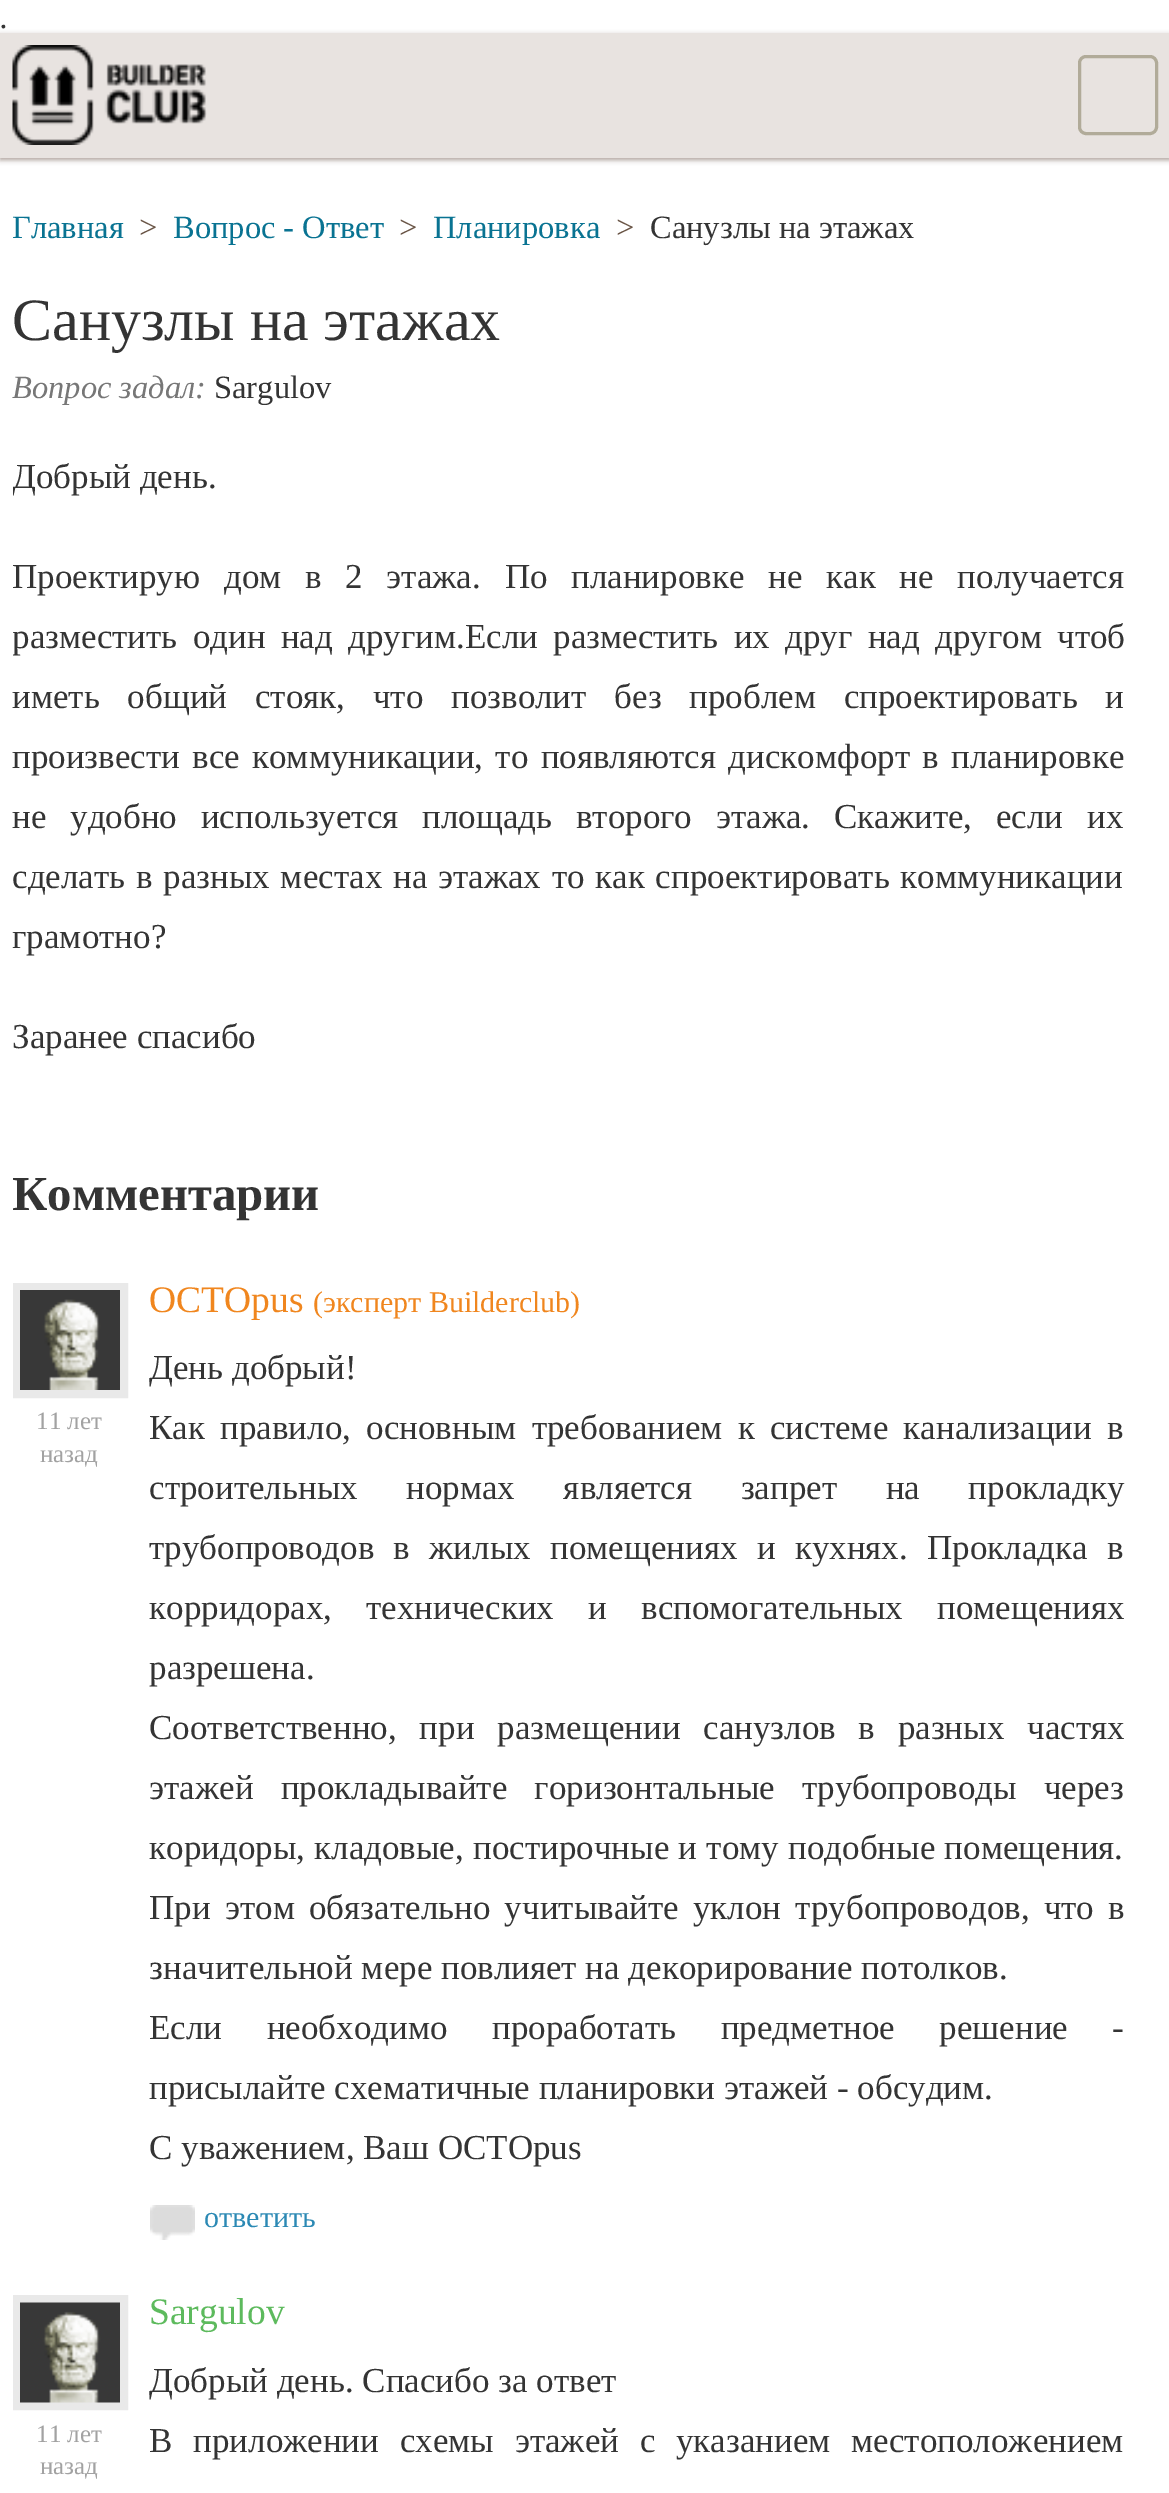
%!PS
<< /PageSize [1169 2493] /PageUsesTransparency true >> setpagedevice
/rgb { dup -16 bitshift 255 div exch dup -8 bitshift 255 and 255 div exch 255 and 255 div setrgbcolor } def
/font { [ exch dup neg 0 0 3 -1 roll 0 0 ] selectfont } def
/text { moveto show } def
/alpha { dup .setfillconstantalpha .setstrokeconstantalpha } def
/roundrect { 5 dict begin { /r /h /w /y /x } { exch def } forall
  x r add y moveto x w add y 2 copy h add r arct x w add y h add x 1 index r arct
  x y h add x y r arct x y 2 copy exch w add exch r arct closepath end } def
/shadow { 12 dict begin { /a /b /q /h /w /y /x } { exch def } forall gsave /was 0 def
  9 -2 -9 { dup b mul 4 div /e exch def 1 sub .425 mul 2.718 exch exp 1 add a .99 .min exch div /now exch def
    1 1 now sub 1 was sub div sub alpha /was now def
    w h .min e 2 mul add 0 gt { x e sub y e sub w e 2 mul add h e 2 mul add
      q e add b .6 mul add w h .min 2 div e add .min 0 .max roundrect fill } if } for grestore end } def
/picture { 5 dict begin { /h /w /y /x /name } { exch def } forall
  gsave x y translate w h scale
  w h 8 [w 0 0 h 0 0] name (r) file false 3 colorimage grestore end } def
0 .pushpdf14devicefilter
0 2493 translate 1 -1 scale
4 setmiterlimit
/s1 { /PTSans-Regular 32.5 font 16#343434 rgb } def
/s2 { /LiberationSerif-Regular 32.5 font 16#097392 rgb } def
/s3 { /LiberationSerif-Regular 32.5 font 16#685344 rgb } def
/s4 { /LiberationSerif-Regular 32.5 font 16#343434 rgb } def
/s5 { /LiberationSerif-Regular 60 font 16#343434 rgb } def
/s6 { /LiberationSerif-Italic 32.5 font 16#777777 rgb } def
/s7 { /LiberationSerif-Regular 35 font 16#343434 rgb } def
/s8 { /LiberationSerif-Bold 48.75 font 16#343434 rgb } def
/s9 { /LiberationSerif-Regular 25 font 16#A2A2A2 rgb } def
/s10 { /LiberationSerif-Regular 37.5 font 16#F0861E rgb } def
/s11 { /LiberationSerif-Regular 30 font 16#F0861E rgb } def
/s12 { /LiberationSerif-Regular 30 font 16#2B89B4 rgb } def
/s13 { /LiberationSerif-Regular 37.5 font 16#5DBA5D rgb } def
16#FFFFFF rgb
0 0 1169 2493 rectfill
s1
(.) 0 28 text
16#ADA099 rgb
0 35 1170 125 0 2.5 1 shadow
16#E8E3E0 rgb
0 33 1169 125 rectfill
(pic1.raw) 12 45 195 100 picture
16#B1AB99 rgb
3 setlinewidth
1079.5 56.5 77 77 6.5 roundrect stroke
s2
(Главная) 12 238 text
s3
(>) 139 238 text
s2
(Вопрос - Ответ) 173 238 text
s3
(>) 399 238 text
s2
(Планировка) 433 238 text
s3
(>) 616 238 text
s4
(Санузлы на этажах) 650 238 text
s5
(Санузлы на этажах) 12 340 text
s6
(Вопрос задал:) 12 398 text
s4
(Sargulov) 214 398 text
gsave
13 408 1145 660 rectclip
s7
(Добрый день.) 12 488 text
grestore
/LiberationSerif-Regular 35 font
12 588 moveto 15 0 32 (Проектирую дом в 2 этажа. По планировке не как не получается) widthshow
gsave
13 408 1145 660 rectclip
12 648 moveto 6.5 0 32 (разместить один над другим.Если разместить их друг над другом чтоб) widthshow
grestore
12 708 moveto 19 0 32 (иметь общий стояк, что позволит без проблем спроектировать и) widthshow
12 768 moveto 3.5 0 32 (произвести все коммуникации, то появляются дискомфорт в планировке) widthshow
12 828 moveto 15 0 32 (не удобно используется площадь второго этажа. Скажите, если их) widthshow
12 888 moveto 2 0 32 (сделать в разных местах на этажах то как спроектировать коммуникации) widthshow
(грамотно?) 12 948 text
(Заранее спасибо) 12 1048 text
gsave
13 1130 1145 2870 rectclip
s8
(Комментарии) 12 1210 text
grestore
16#E9E9E9 rgb
8 setlinewidth
17 1287 107 107 rectstroke
(pic2.raw) 20 1290 100 100 picture
s9
(11 лет) 36 1429 text
(назад) 40 1462 text
s10
(OCTOpus) 149 1312 text
s11
(\(эксперт Builderclub\)) 313 1312 text
s7
(День добрый!) 149 1379 text
149 1439 moveto 6.5 0 32 (Как правило, основным требованием к системе канализации в) widthshow
149 1499 moveto 39.75 0 32 (строительных нормах является запрет на прокладку) widthshow
149 1559 moveto 10.5 0 32 (трубопроводов в жилых помещениях и кухнях. Прокладка в) widthshow
149 1619 moveto 25.5 0 32 (корридорах, технических и вспомогательных помещениях) widthshow
(разрешена.) 149 1679 text
149 1739 moveto 14 0 32 (Соответственно, при размещении санузлов в разных частях) widthshow
149 1799 moveto 18.5 0 32 (этажей прокладывайте горизонтальные трубопроводы через) widthshow
149 1859 moveto 0.5 0 32 (коридоры, кладовые, постирочные и тому подобные помещения.) widthshow
149 1919 moveto 5.5 0 32 (При этом обязательно учитывайте уклон трубопроводов, что в) widthshow
(значительной мере повлияет на декорирование потолков.) 149 1979 text
149 2039 moveto 35.75 0 32 (Если необходимо проработать предметное решение -) widthshow
(присылайте схематичные планировки этажей - обсудим.) 149 2099 text
(С уважением, Ваш OCTOpus) 149 2159 text
(pic3.raw) 150 2205 45 35 picture
s12
(ответить) 204 2227 text
16#E9E9E9 rgb
17 2299 107 107 rectstroke
(pic4.raw) 20 2302 100 101 picture
s9
(11 лет) 36 2442 text
(назад) 40 2474 text
s13
(Sargulov) 149 2324 text
s7
(Добрый день. Спасибо за ответ) 149 2392 text
149 2452 moveto 12 0 32 (В приложении схемы этажей с указанием местоположением) widthshow
.poppdf14devicefilter showpage
